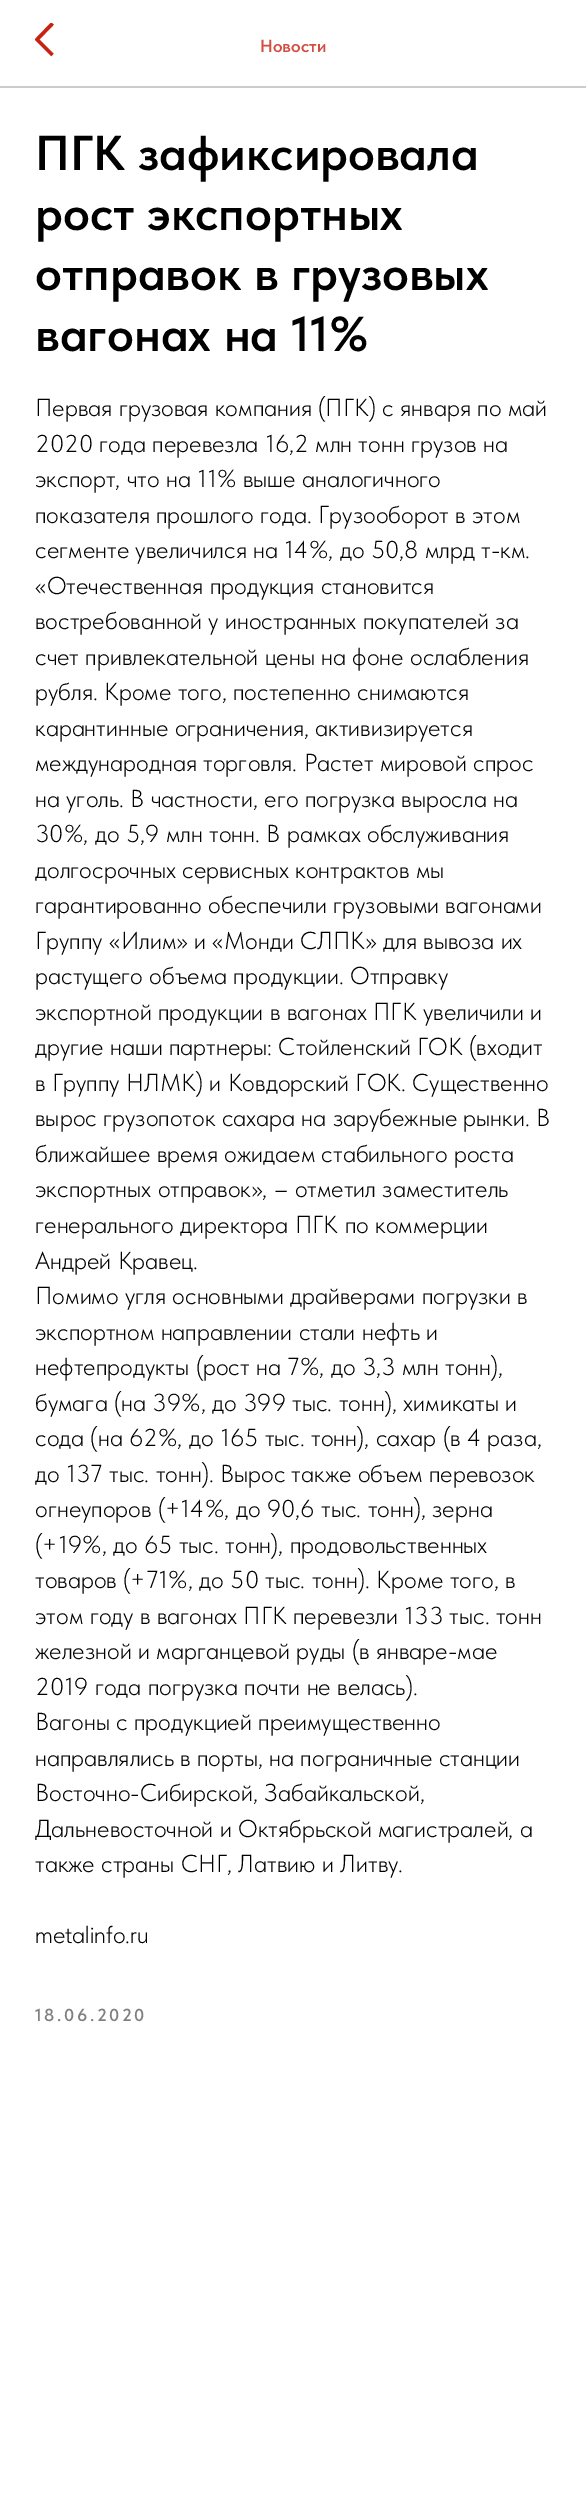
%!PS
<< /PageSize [586 2516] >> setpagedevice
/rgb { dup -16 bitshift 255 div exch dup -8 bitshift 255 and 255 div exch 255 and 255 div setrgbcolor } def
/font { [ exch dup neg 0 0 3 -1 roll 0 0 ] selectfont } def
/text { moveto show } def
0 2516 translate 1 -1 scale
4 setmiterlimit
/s1 { /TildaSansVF-SemiBold 17.5 font 16#D34E42 rgb } def
/s2 { /TildaSansVF-SemiBold 49 font 16#000000 rgb } def
/s3 { /TildaSansVF-Light 24.5 font 16#000000 rgb } def
16#FFFFFF rgb
0 0 586 2516 rectfill
16#CCCCCC rgb
0 86 586 2 rectfill
gsave
35 23 19 35 rectclip
16#C82213 rgb
3.5 setlinewidth
52.5 55 moveto 37 39.5 lineto 52.5 23.5 lineto stroke
grestore
s1
(Новости) 260 52 text
s2
(ПГК зафиксировала) 35 170 text
(рост экспортных) 35 230 text
(отправок в грузовых) 35 290 text
(вагонах на 11%) 35 351 text
s3
(Первая грузовая компания \(ПГК\) с января по май) 35 416 text
(2020 года перевезла 16,2 млн тонн грузов на) 35 452 text
(экспорт, что на 11% выше аналогичного) 35 487 text
(показателя прошлого года. Грузооборот в этом) 35 523 text
(сегменте увеличился на 14%, до 50,8 млрд т-км.) 35 558 text
(«Отечественная продукция становится) 35 594 text
(востребованной у иностранных покупателей за) 35 629 text
(счет привлекательной цены на фоне ослабления) 35 665 text
(рубля. Кроме того, постепенно снимаются) 35 700 text
(карантинные ограничения, активизируется) 35 736 text
(международная торговля. Растет мировой спрос) 35 771 text
(на уголь. В частности, его погрузка выросла на) 35 807 text
(30%, до 5,9 млн тонн. В рамках обслуживания) 35 842 text
(долгосрочных сервисных контрактов мы) 35 878 text
(гарантированно обеспечили грузовыми вагонами) 35 913 text
(Группу «Илим» и «Монди СЛПК» для вывоза их) 35 949 text
(растущего объема продукции. Отправку) 35 984 text
(экспортной продукции в вагонах ПГК увеличили и) 35 1020 text
(другие наши партнеры: Стойленский ГОК \(входит) 35 1055 text
(в Группу НЛМК\) и Ковдорский ГОК. Существенно) 35 1091 text
(вырос грузопоток сахара на зарубежные рынки. В) 35 1126 text
(ближайшее время ожидаем стабильного роста) 35 1162 text
(экспортных отправок», – отметил заместитель) 35 1197 text
(генерального директора ПГК по коммерции) 35 1233 text
(Андрей Кравец.) 35 1269 text
(Помимо угля основными драйверами погрузки в) 35 1304 text
(экспортном направлении стали нефть и) 35 1340 text
(нефтепродукты \(рост на 7%, до 3,3 млн тонн\),) 35 1375 text
(бумага \(на 39%, до 399 тыс. тонн\), химикаты и) 35 1411 text
(сода \(на 62%, до 165 тыс. тонн\), сахар \(в 4 раза,) 35 1446 text
(до 137 тыс. тонн\). Вырос также объем перевозок) 35 1482 text
(огнеупоров \(+14%, до 90,6 тыс. тонн\), зерна) 35 1517 text
(\(+19%, до 65 тыс. тонн\), продовольственных) 35 1553 text
(товаров \(+71%, до 50 тыс. тонн\). Кроме того, в) 35 1588 text
(этом году в вагонах ПГК перевезли 133 тыс. тонн) 35 1624 text
(железной и марганцевой руды \(в январе-мае) 35 1659 text
(2019 года погрузка почти не велась\).) 35 1695 text
(Вагоны с продукцией преимущественно) 35 1730 text
(направлялись в порты, на пограничные станции) 35 1766 text
(Восточно-Сибирской, Забайкальской,) 35 1801 text
(Дальневосточной и Октябрьской магистралей, а) 35 1837 text
(также страны СНГ, Латвию и Литву.) 35 1872 text
(metalinfo.ru) 35 1943 text
/TildaSansVF-SemiBold 17.5 font
16#808080 rgb
35 2021 moveto 2.6 0 (18.06.2020) ashow
showpage
